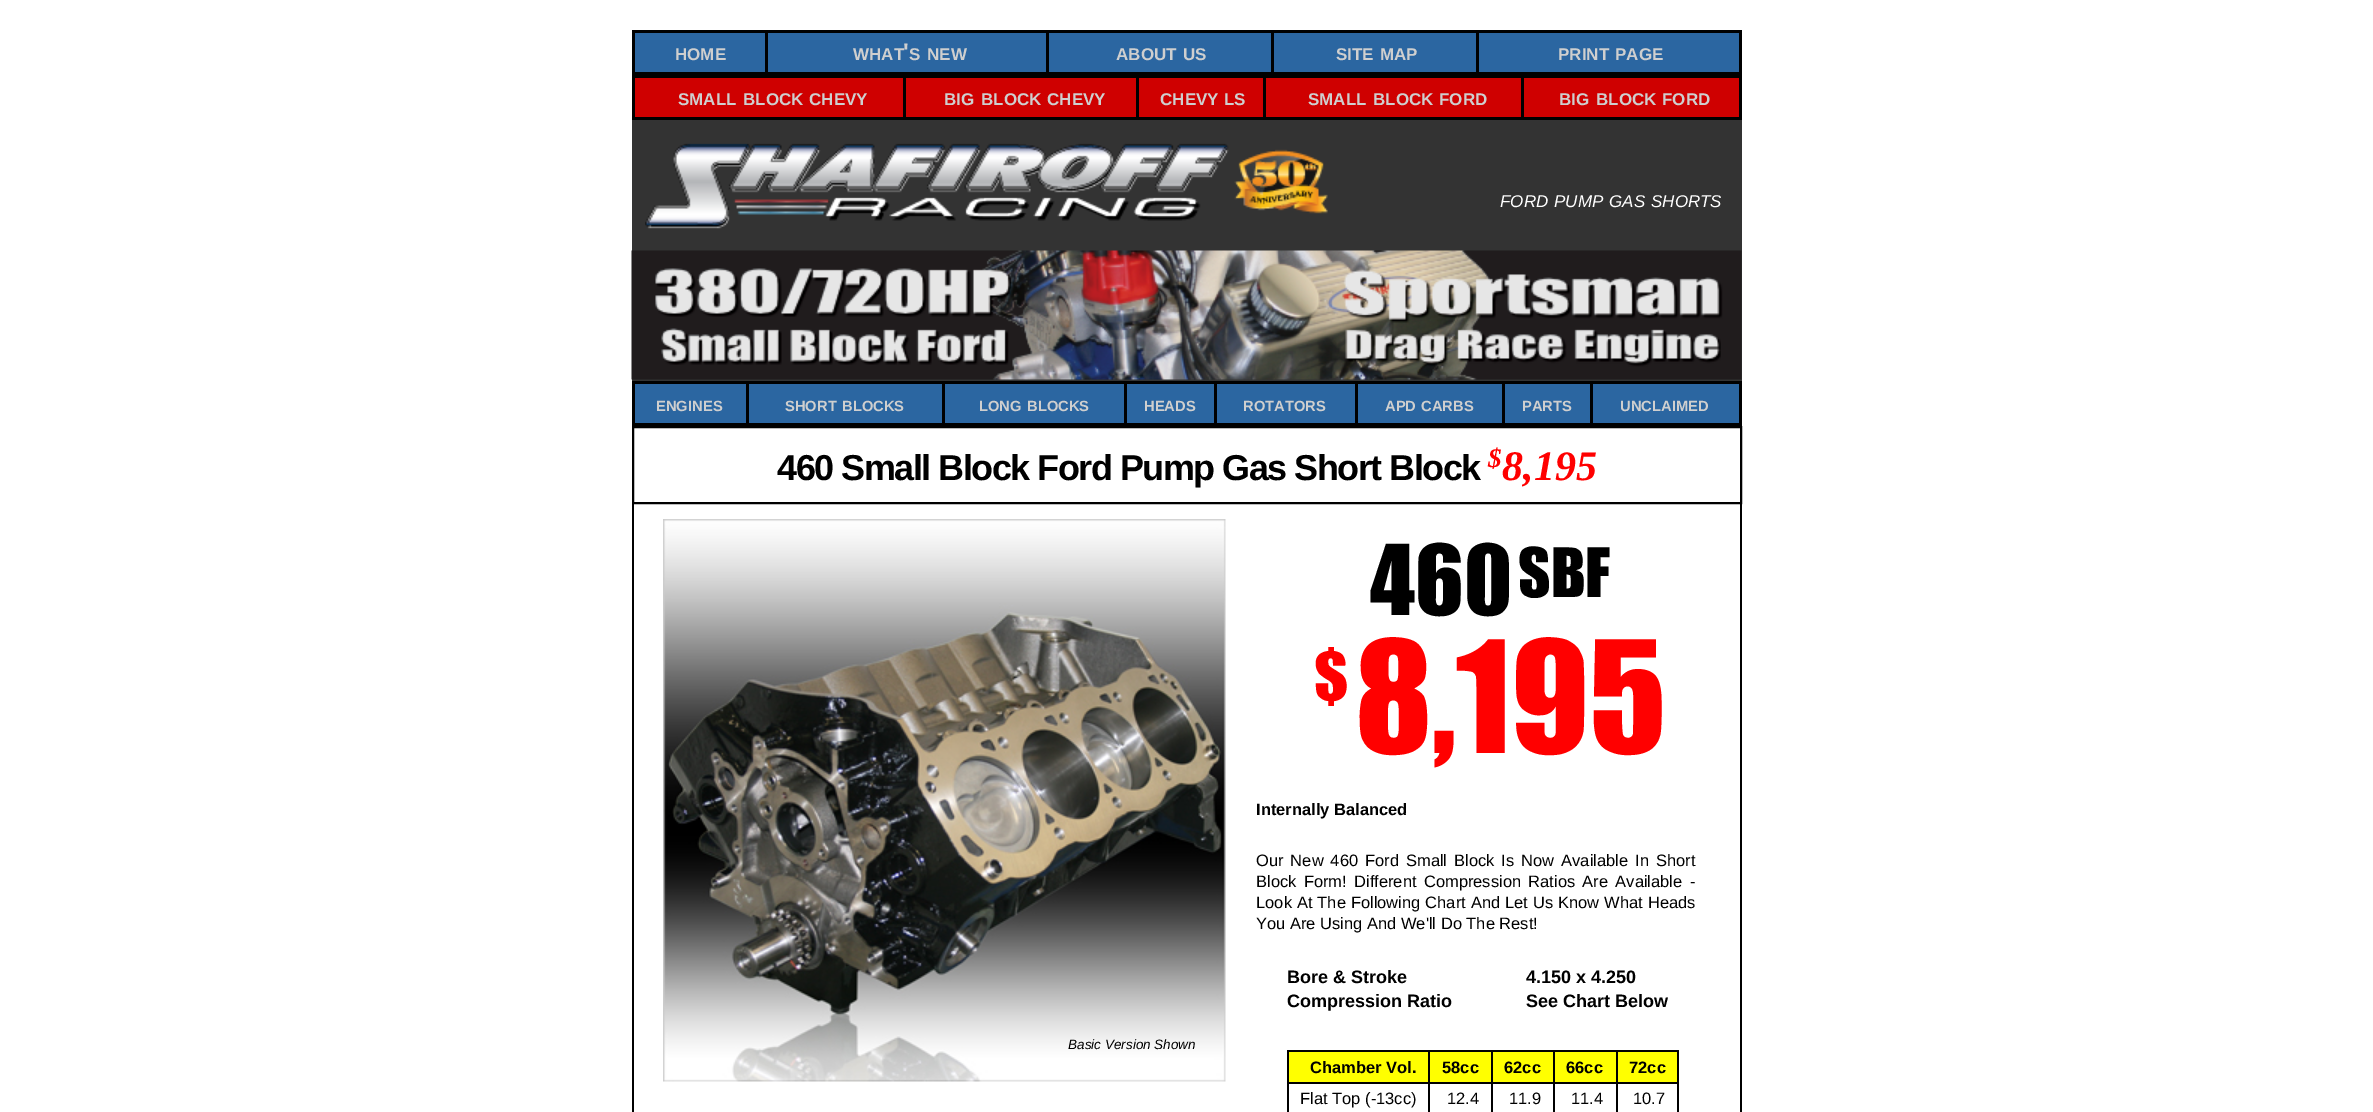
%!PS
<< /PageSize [2373 1112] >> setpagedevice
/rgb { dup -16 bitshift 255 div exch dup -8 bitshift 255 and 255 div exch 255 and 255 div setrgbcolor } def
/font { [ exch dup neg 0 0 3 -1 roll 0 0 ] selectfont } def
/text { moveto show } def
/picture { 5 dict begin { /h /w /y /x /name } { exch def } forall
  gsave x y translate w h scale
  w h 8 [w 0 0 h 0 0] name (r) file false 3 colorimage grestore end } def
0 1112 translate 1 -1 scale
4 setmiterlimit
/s1 { /LiberationSans-Bold 17 font 16#CFCFCF rgb } def
/s2 { /LiberationSans-Bold 24 font 16#CFCFCF rgb } def
/s3 { /LiberationSans-Italic 17 font 16#FFFFFF rgb } def
/s4 { /LiberationSans-Bold 14.75 font 16#CFCFCF rgb } def
/s5 { /LiberationSerif-BoldItalic 27 font 16#FF0000 rgb } def
/s6 { /LiberationSerif-BoldItalic 42 font 16#FF0000 rgb } def
/s7 { /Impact-Regular 90 font 16#000000 rgb } def
/s8 { /Impact-Regular 63 font 16#000000 rgb } def
/s9 { /Impact-Regular 63 font 16#FF0000 rgb } def
/s10 { /Impact-Regular 144 font 16#FF0000 rgb } def
/s11 { /LiberationSans-Bold 16.5 font 16#000000 rgb } def
/s12 { /LiberationSans-Regular 16.5 font 16#000000 rgb } def
/s13 { /LiberationSans-Bold 18 font 16#000000 rgb } def
/s14 { /LiberationSans-Italic 13.5 font 16#000000 rgb } def
16#FFFFFF rgb
0 0 2373 1112 rectfill
16#333333 rgb
632 120 1110 261 rectfill
16#000000 rgb
632 30 1110 90 rectfill
16#2B66A1 rgb
635 33 130 39 rectfill
s1
(HOME) 675 60 text
16#2B66A1 rgb
768 33 278 39 rectfill
s2
(') 903 60 text
s1
(WHAT) 853 60 text
(S) 909 60 text
(NEW) 927 60 text
16#2B66A1 rgb
1049 33 222 39 rectfill
s1
(ABOUT) 1116 60 text
(US) 1183 60 text
16#2B66A1 rgb
1274 33 202 39 rectfill
s1
(SITE) 1336 60 text
(MAP) 1380 60 text
16#2B66A1 rgb
1479 33 260 39 rectfill
s1
(PRINT) 1558 60 text
(PAGE) 1615 60 text
16#CF0000 rgb
635 78 268 39 rectfill
s1
(SMALL) 678 105 text
(BLOCK) 743 105 text
(CHEVY) 809 105 text
16#CF0000 rgb
906 78 230 39 rectfill
s1
(BIG) 944 105 text
(BLOCK) 981 105 text
(CHEVY) 1047 105 text
16#CF0000 rgb
1139 78 124 39 rectfill
s1
(CHEVY) 1160 105 text
(LS) 1224 105 text
16#CF0000 rgb
1266 78 255 39 rectfill
s1
(SMALL) 1308 105 text
(BLOCK) 1373 105 text
(FORD) 1439 105 text
16#CF0000 rgb
1524 78 215 39 rectfill
s1
(BIG) 1559 105 text
(BLOCK) 1596 105 text
(FORD) 1662 105 text
(pic1.raw) 645 143 683 86 picture
s3
(FORD) 1500 207 text
(PUMP) 1554 207 text
(GAS) 1609 207 text
(SHORTS) 1651 207 text
(pic2.raw) 631 250 1111 130 picture
16#000000 rgb
632 381 1110 45 rectfill
16#2B66A1 rgb
635 384 111 39 rectfill
s4
(ENGINES) 656 411 text
16#2B66A1 rgb
749 384 193 39 rectfill
s4
(SHORT) 785 411 text
(BLOCKS) 842 411 text
16#2B66A1 rgb
945 384 179 39 rectfill
s4
(LONG) 979 411 text
(BLOCKS) 1027 411 text
16#2B66A1 rgb
1127 384 87 39 rectfill
s4
(HEADS) 1144 411 text
16#2B66A1 rgb
1217 384 138 39 rectfill
s4
(ROTATORS) 1243 411 text
16#2B66A1 rgb
1358 384 144 39 rectfill
s4
(APD) 1385 411 text
(CARBS) 1421 411 text
16#2B66A1 rgb
1505 384 85 39 rectfill
s4
(PARTS) 1522 411 text
16#2B66A1 rgb
1593 384 146 39 rectfill
s4
(UNCLAIMED) 1620 411 text
16#000000 rgb
2 setlinewidth
633 427 1108 76 rectstroke
/LiberationSans-Bold 36 font
777 480 moveto -1.5 0 (460 Small Block Ford Pump Gas Short Block) ashow
s5
($) 1488 467 text
s6
(8,195) 1502 480 text
16#000000 rgb
1740 504 2 608 rectfill
632 504 2 608 rectfill
s7
(460) 1370 615 text
s8
(SBF) 1518 597 text
s9
($) 1314 701 text
s10
(8,195) 1355 753 text
s11
(Internally Balanced) 1256 815 text
/LiberationSans-Regular 16.5 font
1256 866 moveto 2.4 0 32 (Our New 460 Ford Small Block Is Now Available In Short) widthshow
1256 887 moveto 2.75 0 32 (Block Form! Different Compression Ratios Are Available -) widthshow
1256 908 moveto 0.4 0 32 (Look At The Following Chart And Let Us Know What Heads) widthshow
(You Are Using And We'll Do The Rest!) 1256 929 text
s13
(Bore & Stroke) 1287 983 text
(Compression Ratio) 1287 1007 text
(4.150 x 4.250) 1526 983 text
(See Chart Below) 1526 1007 text
(pic3.raw) 663 519 563 563 picture
s14
(Basic Version Shown) 1068 1049 text
1287 1050 392 2 rectfill
1677 1050 2 62 rectfill
1287 1050 2 62 rectfill
16#FFFF00 rgb
1289 1052 388 30 rectfill
s11
(Chamber Vol.) 1310 1073 text
1616 1082 63 2 rectfill
1616 1082 2 30 rectfill
1553 1082 64 2 rectfill
1553 1082 2 30 rectfill
1491 1082 63 2 rectfill
1491 1082 2 30 rectfill
1428 1082 65 2 rectfill
1428 1082 2 30 rectfill
1287 1082 143 2 rectfill
1428 1050 2 33 rectfill
(58cc) 1442 1073 text
1491 1050 2 33 rectfill
(62cc) 1504 1073 text
1553 1050 2 33 rectfill
(66cc) 1566 1073 text
1616 1050 2 33 rectfill
(72cc) 1629 1073 text
s12
(Flat Top \(-13cc\)) 1300 1104 text
(12.4) 1447 1104 text
(11.9) 1509 1104 text
(11.4) 1571 1104 text
(10.7) 1633 1104 text
showpage
